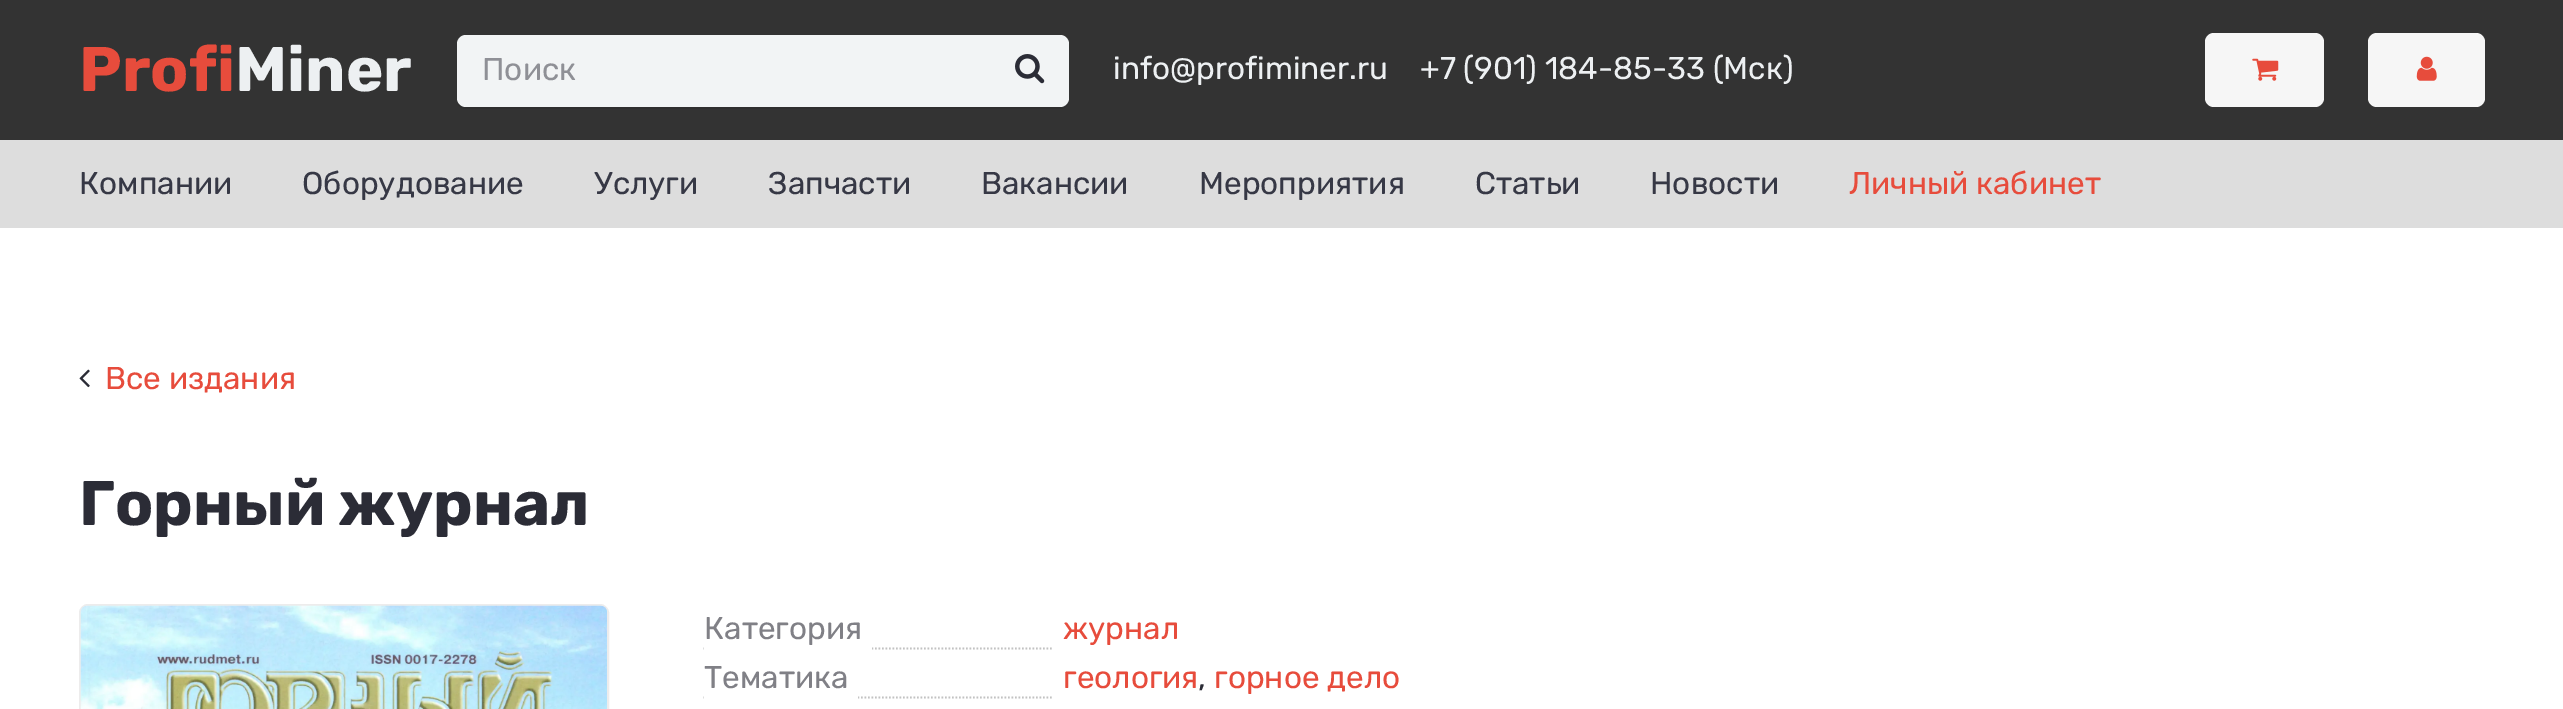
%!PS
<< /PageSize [2563 709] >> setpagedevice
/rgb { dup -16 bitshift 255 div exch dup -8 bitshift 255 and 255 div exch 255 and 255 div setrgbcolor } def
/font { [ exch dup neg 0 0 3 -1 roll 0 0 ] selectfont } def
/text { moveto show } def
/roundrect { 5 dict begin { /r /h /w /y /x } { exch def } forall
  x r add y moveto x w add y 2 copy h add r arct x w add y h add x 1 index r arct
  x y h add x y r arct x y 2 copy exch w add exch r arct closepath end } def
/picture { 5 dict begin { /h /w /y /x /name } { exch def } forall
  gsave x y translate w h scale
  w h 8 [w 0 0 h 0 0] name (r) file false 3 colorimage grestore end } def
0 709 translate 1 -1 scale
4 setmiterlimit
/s1 { /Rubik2-Light 63 font 16#E74C3C rgb } def
/s2 { /Rubik2-Light 63 font 16#EDF0F2 rgb } def
/s3 { /Rubik-Light 31.5 font 16#8F9096 rgb } def
/s4 { /Rubik-Light 31.5 font 16#EDF0F2 rgb } def
/s5 { /Rubik-Light 31.5 font 16#363845 rgb } def
/s6 { /Rubik-Light 31.5 font 16#E74C3C rgb } def
/s7 { /Rubik2-Light 63 font 16#2B2C36 rgb } def
/s8 { /Rubik-Light 31.5 font 16#808086 rgb } def
/s9 { /Rubik-Light 31.5 font 16#2B2C36 rgb } def
16#FFFFFF rgb
0 0 2563 709 rectfill
16#333333 rgb
0 0 2563 140 rectfill
s1
(Profi) 79 91 text
s2
(Miner) 235 91 text
16#2F2F2F rgb
457 100 moveto 457 105 461 109 466 109 curveto 1060 109 lineto 1065 109 1069 105 1069 100 curveto 1068 104 1065 107 1060 107 curveto 466 107 lineto 461 107 458 104 457 100 curveto closepath fill
16#F2F4F5 rgb
457 35 612 72 9 roundrect fill
s3
(Поиск) 482 80 text
(pic1.raw) 1015 54 30 30 picture
s4
(info@profiminer.ru) 1113 79 text
(+7 \(901\) 184-85-33 \(Мск\)) 1420 79 text
16#F6F6F6 rgb
2205 33 119 74 9 roundrect fill
(pic2.raw) 2252 58 27 23 picture
2368 33 117 74 9 roundrect fill
(pic3.raw) 2416 56 21 25 picture
16#DDDDDD rgb
0 140 2563 88 rectfill
s5
(Компании) 79 194 text
(Оборудование) 302 194 text
(Услуги) 594 194 text
(Запчасти) 768 194 text
(Вакансии) 981 194 text
(Мероприятия) 1199 194 text
(Статьи) 1475 194 text
(Новости) 1650 194 text
s6
(Личный кабинет) 1849 194 text
(pic4.raw) 79 369 11 19 picture
(Все издания) 105 389 text
s7
(Горный журнал) 79 525 text
16#EDECEC rgb
2 setlinewidth
80 605 528 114 8 roundrect stroke
(pic5.raw) 80 605 527 104 picture
s8
(Категория) 704 639 text
16#C2C2C2 rgb
1.8 setlinewidth
[1.75 1.75] 0 setdash
703.5 648.5 moveto 1053.5 648.5 lineto stroke
16#FFFFFF rgb
704 647 168 3 rectfill
s6
(журнал) 1063 639 text
s8
(Тематика) 704 688 text
16#C2C2C2 rgb
703.5 697.5 moveto 1053.5 697.5 lineto stroke
16#FFFFFF rgb
704 696 154 3 rectfill
s6
(геология) 1063 688 text
s9
(,) 1198 688 text
s6
(горное дело) 1214 688 text
showpage
